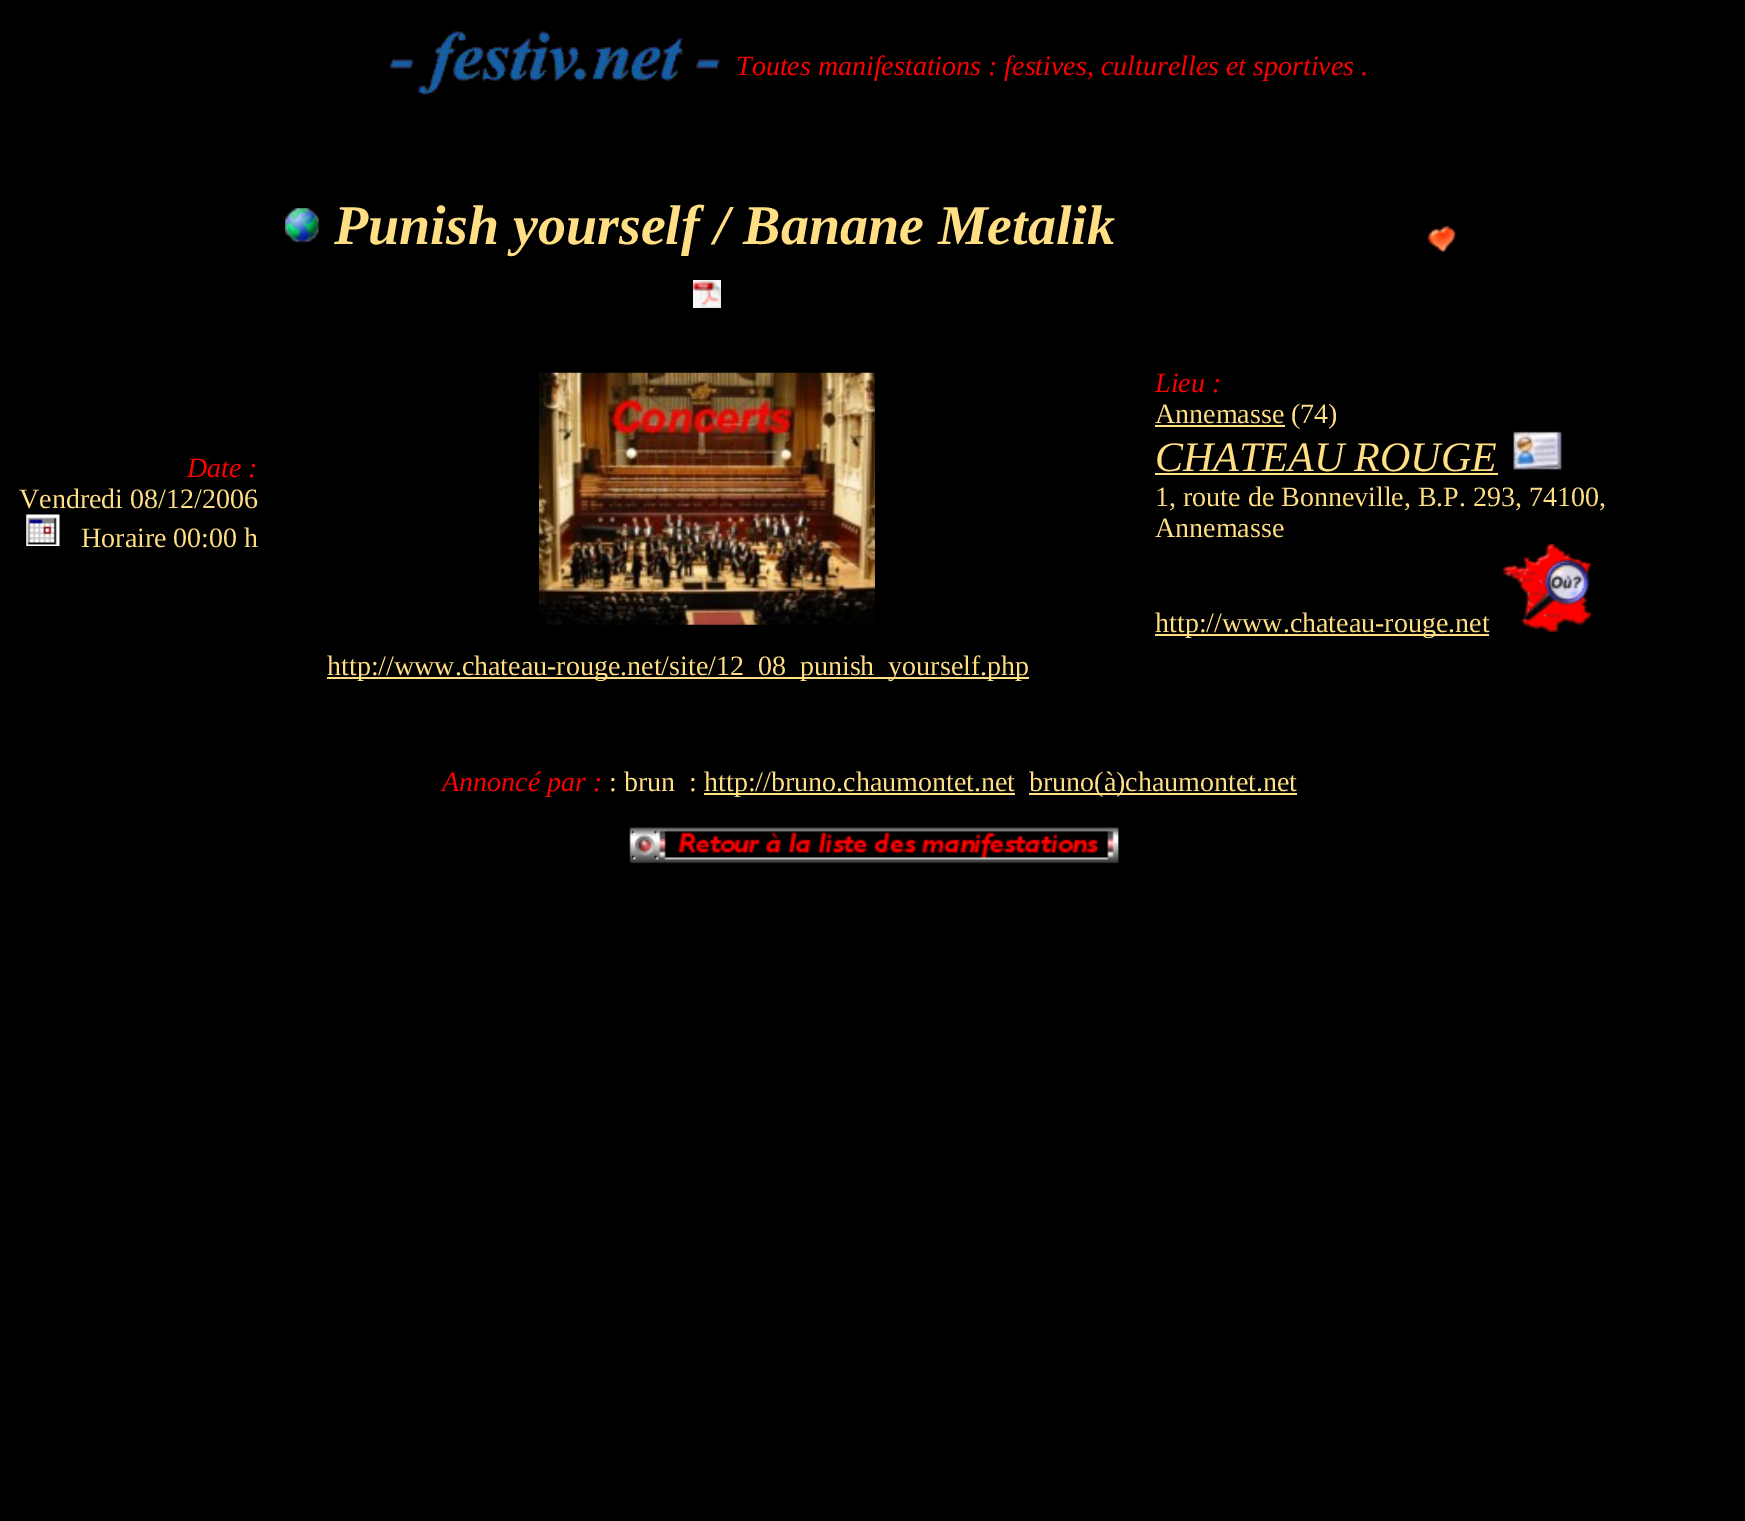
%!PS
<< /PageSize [1745 1521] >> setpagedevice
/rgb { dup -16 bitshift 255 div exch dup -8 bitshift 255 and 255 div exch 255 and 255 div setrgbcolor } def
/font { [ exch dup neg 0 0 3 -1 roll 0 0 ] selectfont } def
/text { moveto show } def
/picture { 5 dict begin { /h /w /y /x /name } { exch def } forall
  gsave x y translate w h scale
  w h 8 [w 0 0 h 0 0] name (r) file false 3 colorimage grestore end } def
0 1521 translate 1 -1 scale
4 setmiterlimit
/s1 { /LiberationSerif-Italic 28 font 16#FF0000 rgb } def
/s2 { /LiberationSerif-BoldItalic 56 font 16#FFDE84 rgb } def
/s3 { /LiberationSerif-Regular 28 font 16#FFDE84 rgb } def
/s4 { /LiberationSerif-Italic 42 font 16#FFDE84 rgb } def
16#000000 rgb
0 0 1745 1521 rectfill
(pic1.raw) 389 31 331 64 picture
s1
(Toutes manifestations : festives, culturelles et sportives .) 736 75 text
(pic2.raw) 285 208 35 35 picture
s2
(Punish yourself / Banane Metalik) 334 244 text
(pic3.raw) 693 280 28 28 picture
(pic4.raw) 1428 225 28 27 picture
s1
(Date :) 187 477 text
s3
(Vendredi 08/12/2006) 19 508 text
(pic5.raw) 26 514 34 32 picture
(Horaire 00:00 h) 81 547 text
(pic6.raw) 539 372 336 253 picture
s1
(Lieu :) 1155 392 text
16#FFDE84 rgb
1155 425 130 2 rectfill
s3
(Annemasse \(74\)) 1155 423 text
s4
(CHATEAU ROUGE) 1155 471 text
1155 473 343 2 rectfill
(pic7.raw) 1512 430 51 41 picture
s3
(1, route de Bonneville, B.P. 293, 74100,) 1155 506 text
(Annemasse) 1155 537 text
1155 634 334 2 rectfill
(http://www.chateau-rouge.net) 1155 632 text
(pic8.raw) 1503 544 88 88 picture
327 677 702 2 rectfill
(http://www.chateau-rouge.net/site/12_08_punish_yourself.php) 327 675 text
s1
(Annoncé par :) 442 791 text
s3
(: brun  :) 609 791 text
704 793 311 2 rectfill
(http://bruno.chaumontet.net) 704 791 text
1029 793 268 2 rectfill
(bruno\(à\)chaumontet.net) 1029 791 text
(pic9.raw) 629 827 490 37 picture
showpage
